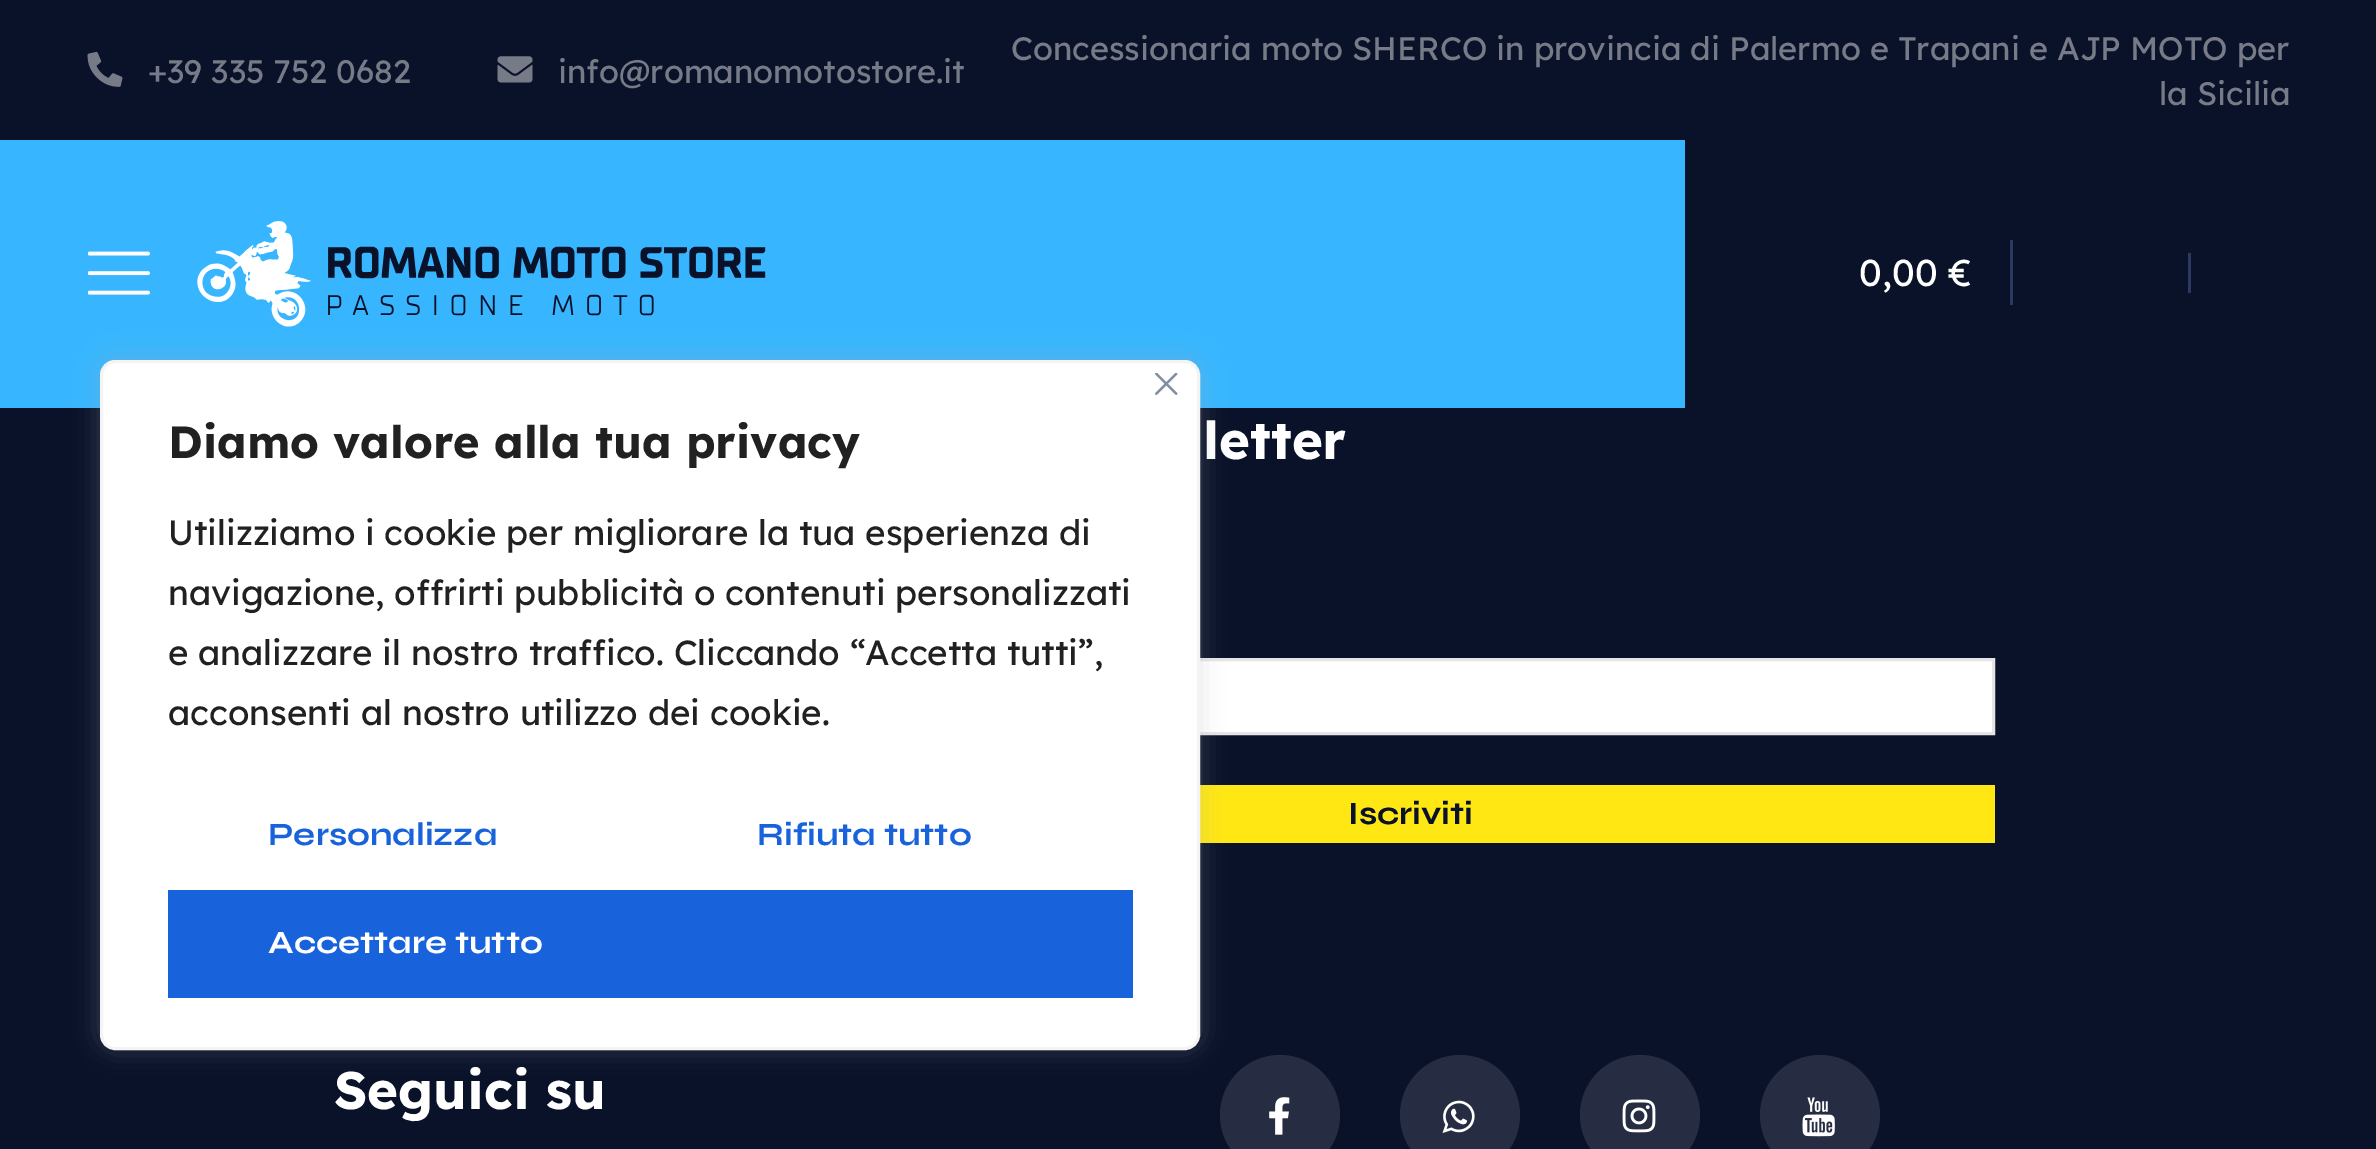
%!PS
<< /PageSize [2376 1149] /PageUsesTransparency true >> setpagedevice
/rgb { dup -16 bitshift 255 div exch dup -8 bitshift 255 and 255 div exch 255 and 255 div setrgbcolor } def
/font { [ exch dup neg 0 0 3 -1 roll 0 0 ] selectfont } def
/text { moveto show } def
/alpha { dup .setfillconstantalpha .setstrokeconstantalpha } def
/circle { newpath 0 360 arc closepath } def
/roundrect { 5 dict begin { /r /h /w /y /x } { exch def } forall
  x r add y moveto x w add y 2 copy h add r arct x w add y h add x 1 index r arct
  x y h add x y r arct x y 2 copy exch w add exch r arct closepath end } def
/shadow { 12 dict begin { /a /b /q /h /w /y /x } { exch def } forall gsave /was 0 def
  9 -2 -9 { dup b mul 4 div /e exch def 1 sub .425 mul 2.718 exch exp 1 add a .99 .min exch div /now exch def
    1 1 now sub 1 was sub div sub alpha /was now def
    w h .min e 2 mul add 0 gt { x e sub y e sub w e 2 mul add h e 2 mul add
      q e add b .6 mul add w h .min 2 div e add .min 0 .max roundrect fill } if } for grestore end } def
/picture { 5 dict begin { /h /w /y /x /name } { exch def } forall
  gsave x y translate w h scale
  w h 8 [w 0 0 h 0 0] name (r) file false 3 colorimage grestore end } def
0 .pushpdf14devicefilter
0 1149 translate 1 -1 scale
4 setmiterlimit
/s1 { /Lexend-Regular 32.5 font 16#777B87 rgb } def
/s2 { /Lexend-Regular 37.5 font 16#FFFFFF rgb } def
/s3 { /ReadexPro-Bold 52.5 font 16#FFFFFF rgb } def
/s4 { /Syne-Bold 32.5 font 16#0A122A rgb } def
/s5 { /Lexend-Bold 45 font 16#212121 rgb } def
/s6 { /Lexend-Regular 35 font 16#212121 rgb } def
/s7 { /Syne-Bold 32.5 font 16#1863DC rgb } def
/s8 { /Syne-Bold 32.5 font 16#FFFFFF rgb } def
16#0A122A rgb
0 0 2376 1149 rectfill
(pic1.raw) 87 51 36 36 picture
s1
(+39 335 752 0682) 148 83 text
(pic2.raw) 497 56 36 27 picture
(info@romanomotostore.it) 558 83 text
(Concessionaria moto SHERCO in provincia di Palermo e Trapani e AJP MOTO per) 1011 60 text
(la Sicilia) 2159 105 text
16#37B6FF rgb
0 140 1685 268 rectfill
(pic3.raw) 88 251 62 44 picture
(pic4.raw) 197 221 569 106 picture
16#2D395F rgb
2010 240 3 65 rectfill
s2
(0,00 €) 1859 286 text
16#2D395F rgb
2188 253 3 40 rectfill
s3
(letter) 1203 459 text
1200 661 792 71 rectfill
16#E5E5E5 rgb
3 setlinewidth
829.5 659.5 1164 74 rectstroke
16#FFE713 rgb
1200 785 795 58 rectfill
s4
(Iscriviti) 1348 824 text
s3
(Seguici su) 334 1109 text
16#262D42 rgb
1280 1115 60 circle fill
(pic5.raw) 1269 1097 21 38 picture
1460 1115 60 circle fill
(pic6.raw) 1442 1100 33 33 picture
1640 1115 60 circle fill
(pic7.raw) 1622 1099 34 34 picture
1820 1115 60 circle fill
(pic8.raw) 1802 1097 33 40 picture
16#ACABAB rgb
100 358 1100 690 15 12.5 0.3 shadow
16#FFFFFF rgb
101.5 361.5 1097 687 13.5 roundrect gsave fill grestore
16#F4F4F4 rgb
stroke
(pic9.raw) 1155 373 23 22 picture
s5
(Diamo valore alla tua privacy) 168 458 text
s6
(Utilizziamo i cookie per migliorare la tua esperienza di) 168 545 text
(navigazione, offrirti pubblicità o contenuti personalizzati) 168 605 text
(e analizzare il nostro traffico. Cliccando “Accetta tutti”,) 168 665 text
(acconsenti al nostro utilizzo dei cookie.) 168 725 text
s7
(Personalizza) 268 845 text
(Rifiuta tutto) 757 845 text
168 890 965 108 rectfill
s8
(Accettare tutto) 268 953 text
.poppdf14devicefilter showpage
